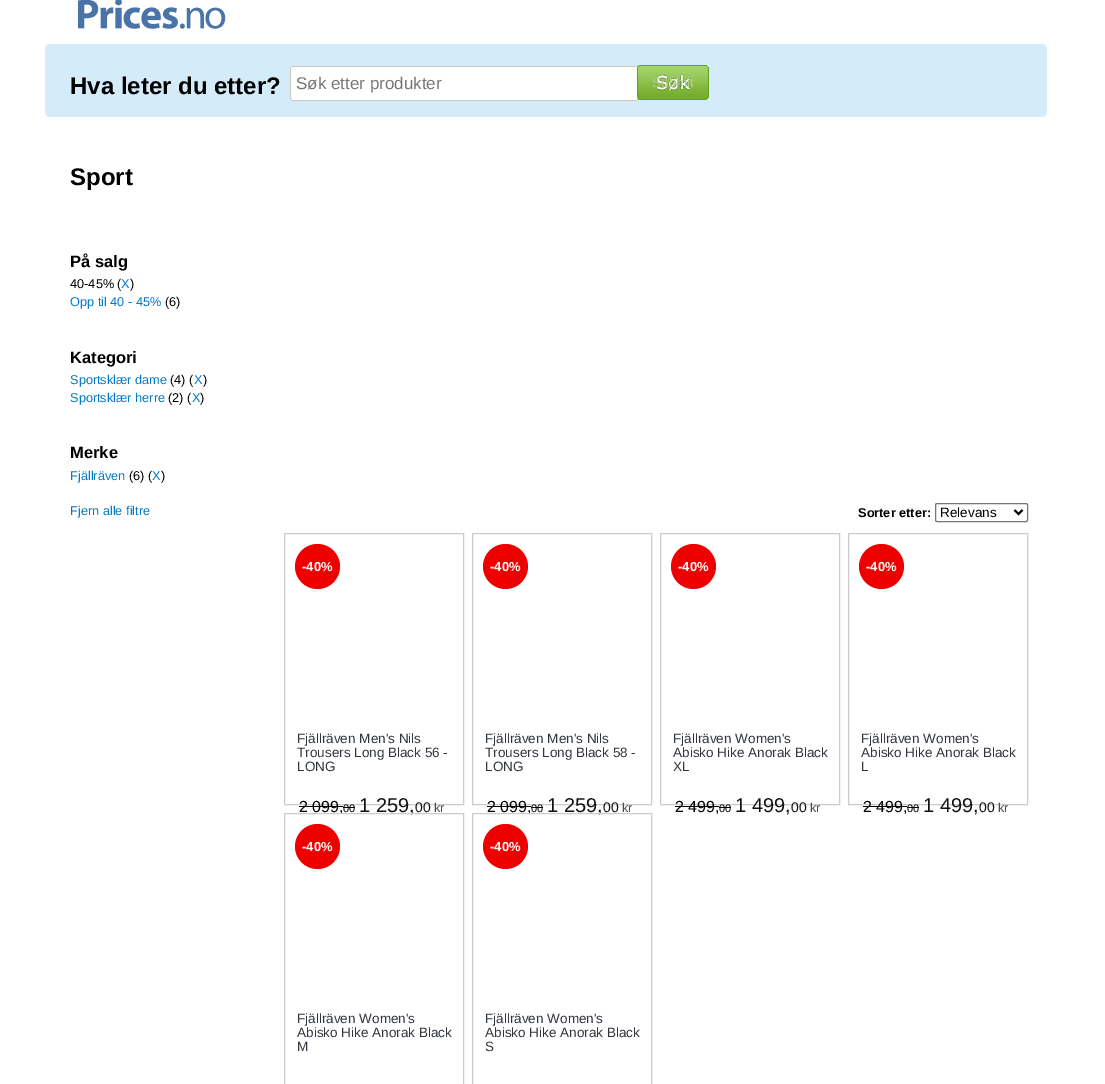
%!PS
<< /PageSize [1105 1084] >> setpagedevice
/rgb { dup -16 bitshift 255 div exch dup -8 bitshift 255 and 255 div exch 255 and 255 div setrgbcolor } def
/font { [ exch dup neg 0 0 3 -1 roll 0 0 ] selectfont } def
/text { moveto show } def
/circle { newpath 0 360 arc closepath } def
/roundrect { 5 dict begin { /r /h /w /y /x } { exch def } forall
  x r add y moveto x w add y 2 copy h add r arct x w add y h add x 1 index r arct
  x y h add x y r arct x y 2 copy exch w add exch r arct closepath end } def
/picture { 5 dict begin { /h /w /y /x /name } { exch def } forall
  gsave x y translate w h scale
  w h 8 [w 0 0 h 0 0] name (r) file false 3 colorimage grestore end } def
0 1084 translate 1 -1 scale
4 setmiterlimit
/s1 { /LiberationSans-Bold 24 font 16#000000 rgb } def
/s2 { /LiberationSans-Regular 17 font 16#757575 rgb } def
/s3 { /LiberationSans-Regular 13.5 font 16#ADCC87 rgb } def
/s4 { /LiberationSans-Bold 16.5 font 16#000000 rgb } def
/s5 { /LiberationSans-Regular 12.75 font 16#000000 rgb } def
/s6 { /LiberationSans-Regular 12.75 font 16#027AC6 rgb } def
/s7 { /LiberationSans-Bold 12.75 font 16#000000 rgb } def
/s8 { /LiberationSans-Regular 13.5 font 16#000000 rgb } def
/s9 { /LiberationSans-Bold 13 font 16#FFFFFF rgb } def
/s10 { /LiberationSans-Regular 13.5 font 16#31353D rgb } def
/s11 { /LiberationSans-Regular 16 font 16#000000 rgb } def
/s12 { /LiberationSans-Regular 11 font 16#000000 rgb } def
/s13 { /LiberationSans-Regular 20 font 16#111111 rgb } def
/s14 { /LiberationSans-Regular 14 font 16#111111 rgb } def
/s15 { /LiberationSans-Regular 12.75 font 16#494949 rgb } def
16#FFFFFF rgb
0 0 1105 1084 rectfill
(pic1.raw) 77 0 149 29 picture
16#D4EBFA rgb
45 44 1002 73 5 roundrect fill
s1
(Hva leter du etter?) 70 94 text
(pic2.raw) 290 66 347 35 picture
s2
(Søk etter produkter) 296 89 text
16#EFEFEF rgb
707 65 2 35 rectfill
(pic3.raw) 637 65 72 35 picture
s3
(Submit) 652 87 text
s1
(Sport) 70 185 text
s4
(På salg) 70 267 text
s5
(40-45% \() 70 288 text
s6
(X) 121 288 text
s5
(\)) 130 288 text
s6
(Opp til 40 - 45%) 70 306 text
s5
(\(6\)) 165 306 text
s4
(Kategori) 70 363 text
s6
(Sportsklær dame) 70 384 text
s5
(\(4\) \() 170 384 text
s6
(X) 194 384 text
s5
(\)) 203 384 text
s6
(Sportsklær herre) 70 402 text
s5
(\(2\) \() 168 402 text
s6
(X) 192 402 text
s5
(\)) 200 402 text
s4
(Merke) 70 458 text
s6
(Fjällräven) 70 480 text
s5
(\(6\) \() 129 480 text
s6
(X) 152 480 text
s5
(\)) 161 480 text
s6
(Fjern alle filtre) 70 515 text
s7
(Sorter etter:) 858 517 text
16#767676 rgb
935.5 503.5 92 18 1.5 roundrect stroke
16#000000 rgb
2 setlinewidth
1014.5 510 moveto 1018.5 514 lineto 1022.5 510 lineto stroke
s8
(Relevans) 940 517 text
16#CCCCCC rgb
1 setlinewidth
284.5 533.5 179 271 rectstroke
16#EE0000 rgb
317.5 566.5 22.5 circle fill
s9
(-40%) 302 571 text
s10
(Fjällräven Men's Nils) 297 743 text
(Trousers Long Black 56 -) 297 757 text
(LONG) 297 771 text
s11
(2 099,) 299 812 text
299 806 44 1 rectfill
343 807 12 1 rectfill
s12
(00) 343 812 text
s13
(1 259,) 359 812 text
s14
(00) 415 812 text
s15
(kr) 434 812 text
16#CCCCCC rgb
472.5 533.5 179 271 rectstroke
16#EE0000 rgb
505.5 566.5 22.5 circle fill
s9
(-40%) 490 571 text
s10
(Fjällräven Men's Nils) 485 743 text
(Trousers Long Black 58 -) 485 757 text
(LONG) 485 771 text
s11
(2 099,) 487 812 text
487 806 44 1 rectfill
531 807 12 1 rectfill
s12
(00) 531 812 text
s13
(1 259,) 547 812 text
s14
(00) 603 812 text
s15
(kr) 622 812 text
16#CCCCCC rgb
660.5 533.5 179 271 rectstroke
16#EE0000 rgb
693.5 566.5 22.5 circle fill
s9
(-40%) 678 571 text
s10
(Fjällräven Women's) 673 743 text
(Abisko Hike Anorak Black) 673 757 text
(XL) 673 771 text
s11
(2 499,) 675 812 text
675 806 44 1 rectfill
719 807 12 1 rectfill
s12
(00) 719 812 text
s13
(1 499,) 735 812 text
s14
(00) 791 812 text
s15
(kr) 810 812 text
16#CCCCCC rgb
848.5 533.5 179 271 rectstroke
16#EE0000 rgb
881.5 566.5 22.5 circle fill
s9
(-40%) 866 571 text
s10
(Fjällräven Women's) 861 743 text
(Abisko Hike Anorak Black) 861 757 text
(L) 861 771 text
s11
(2 499,) 863 812 text
863 806 44 1 rectfill
907 807 12 1 rectfill
s12
(00) 907 812 text
s13
(1 499,) 923 812 text
s14
(00) 979 812 text
s15
(kr) 998 812 text
16#CCCCCC rgb
284.5 813.5 179 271 rectstroke
16#EE0000 rgb
317.5 846.5 22.5 circle fill
s9
(-40%) 302 851 text
s10
(Fjällräven Women's) 297 1023 text
(Abisko Hike Anorak Black) 297 1037 text
(M) 297 1051 text
16#CCCCCC rgb
472.5 813.5 179 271 rectstroke
16#EE0000 rgb
505.5 846.5 22.5 circle fill
s9
(-40%) 490 851 text
s10
(Fjällräven Women's) 485 1023 text
(Abisko Hike Anorak Black) 485 1037 text
(S) 485 1051 text
showpage
